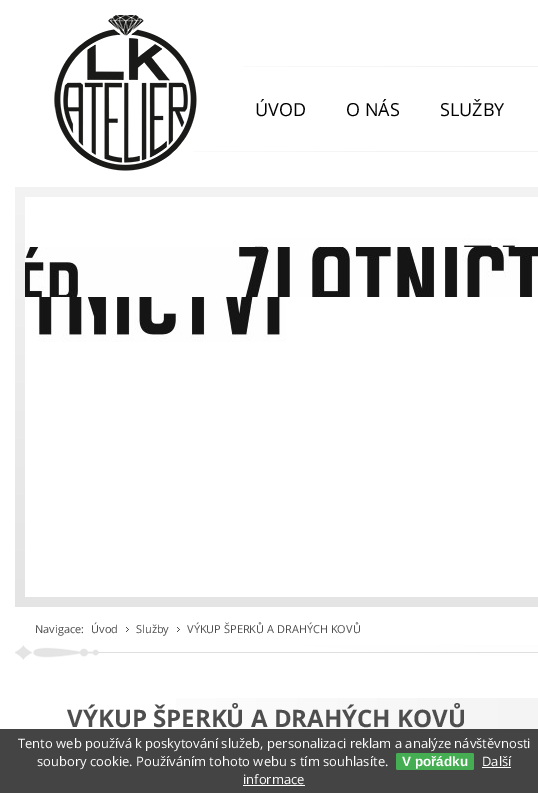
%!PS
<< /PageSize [538 793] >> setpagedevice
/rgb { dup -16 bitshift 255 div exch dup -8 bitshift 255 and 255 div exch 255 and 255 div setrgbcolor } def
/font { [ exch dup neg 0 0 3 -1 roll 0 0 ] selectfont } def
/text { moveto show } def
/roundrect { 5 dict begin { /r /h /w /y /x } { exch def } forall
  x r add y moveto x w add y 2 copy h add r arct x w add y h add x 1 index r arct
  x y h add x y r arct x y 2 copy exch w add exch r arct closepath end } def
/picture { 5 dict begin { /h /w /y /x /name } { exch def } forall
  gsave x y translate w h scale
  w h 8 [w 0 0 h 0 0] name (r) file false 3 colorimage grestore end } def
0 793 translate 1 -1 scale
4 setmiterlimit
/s1 { /OpenSans-Regular 18 font 16#000000 rgb } def
/s2 { /OpenSans-Regular 11 font 16#4E4E4E rgb } def
/s3 { /OpenSans-Bold 24 font 16#4E4E4E rgb } def
/s4 { /OpenSans-Regular 13 font 16#FFFFFF rgb } def
/s5 { /LiberationSans-Bold 13.5 font 16#FFFFFF rgb } def
16#FFFFFF rgb
0 0 538 793 rectfill
(pic3.raw) 193 151 345 1 picture
(pic1.raw) 54 15 143 156 picture
(pic2.raw) 243 66 295 1 picture
s1
(ÚVOD) 255 116 text
(O NÁS) 346 116 text
(SLUŽBY) 440 116 text
gsave 15 187 moveto 538 187 lineto 538 607 lineto 15 607 lineto closepath clip newpath
<< /ShadingType 2 /ColorSpace /DeviceRGB /Coords [523 187 523 607] /Extend [true true] /Function << /FunctionType 2 /Domain [0 1] /C0 [0.953 0.953 0.953] /C1 [0.894 0.894 0.894] /N 1 >> >> shfill grestore
16#FFFFFF rgb
25 197 513 400 rectfill
(pic4.raw) 253 238 265 9 picture
(pic5.raw) 25 247 513 50 picture
(pic6.raw) 38 297 248 45 picture
s2
(Navigace:) 35 633 text
(Úvod) 91 633 text
(pic7.raw) 126 627 3 5 picture
(Služby) 136 633 text
(pic7.raw) 177 627 3 5 picture
(VÝKUP ŠPERKŮ A DRAHÝCH KOVŮ) 187 633 text
(pic8.raw) 15 645 523 15 picture
gsave 176 698 moveto 538 698 lineto 538 729 lineto 176 729 lineto closepath clip newpath
<< /ShadingType 2 /ColorSpace /DeviceRGB /Coords [67 719 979 719] /Extend [true true] /Function << /FunctionType 2 /Domain [0 1] /C0 [1 1 1] /C1 [0.918 0.918 0.918] /N 1 >> >> shfill grestore
s3
(VÝKUP ŠPERKŮ A DRAHÝCH KOVŮ) 67 727 text
16#444444 rgb
0 729 538 64 rectfill
s4
(Tento web používá k poskytování služeb, personalizaci reklam a analýze návštěvnosti) 18 748 text
(soubory cookie. Používáním tohoto webu s tím souhlasíte.) 37 766 text
16#45AE52 rgb
396 753 78 17 2 roundrect fill
s5
(V pořádku) 402 766 text
s4
(Další) 482 766 text
482 767 29 1 rectfill
(informace) 243 784 text
243 785 62 1 rectfill
showpage
